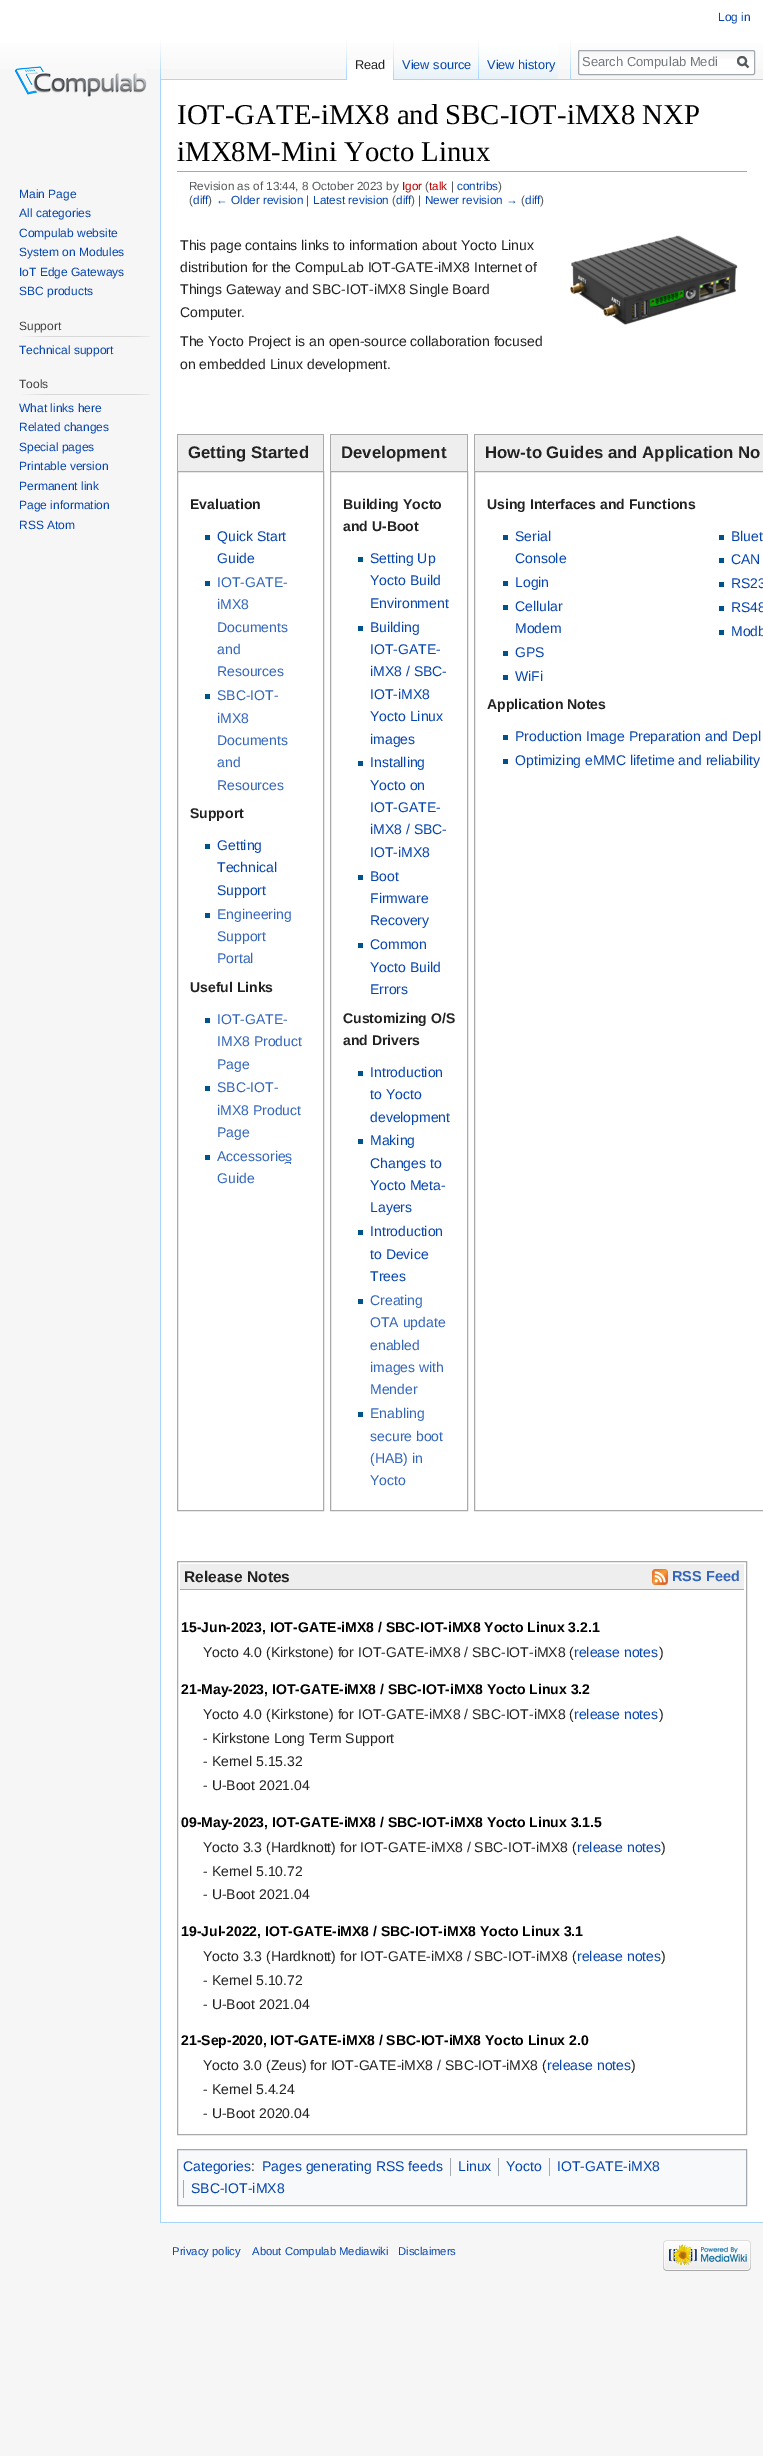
%!PS
<< /PageSize [763 2456] >> setpagedevice
/rgb { dup -16 bitshift 255 div exch dup -8 bitshift 255 and 255 div exch 255 and 255 div setrgbcolor } def
/font { [ exch dup neg 0 0 3 -1 roll 0 0 ] selectfont } def
/text { moveto show } def
/circle { newpath 0 360 arc closepath } def
/roundrect { 5 dict begin { /r /h /w /y /x } { exch def } forall
  x r add y moveto x w add y 2 copy h add r arct x w add y h add x 1 index r arct
  x y h add x y r arct x y 2 copy exch w add exch r arct closepath end } def
/picture { 5 dict begin { /h /w /y /x /name } { exch def } forall
  gsave x y translate w h scale
  w h 8 [w 0 0 h 0 0] name (r) file false 3 colorimage grestore end } def
0 2456 translate 1 -1 scale
4 setmiterlimit
/s1 { /LiberationSans-Regular 12 font 16#0645AD rgb } def
/s2 { /LiberationSans-Regular 12.75 font 16#222222 rgb } def
/s3 { /LiberationSans-Regular 12.75 font 16#0645AD rgb } def
/s4 { /LiberationSans-Regular 13 font 16#72777D rgb } def
/s5 { /LiberationSans-Regular 12 font 16#444444 rgb } def
/s6 { /LiberationSerif-Regular 28.75 font 16#000000 rgb } def
/s7 { /LiberationSans-Regular 11.75 font 16#54595D rgb } def
/s8 { /LiberationSans-Regular 11.75 font 16#BA0000 rgb } def
/s9 { /LiberationSans-Regular 11.75 font 16#0645AD rgb } def
/s10 { /LiberationSans-Regular 14 font 16#222222 rgb } def
/s11 { /LiberationSans-Bold 16.75 font 16#222222 rgb } def
/s12 { /LiberationSans-Bold 14 font 16#222222 rgb } def
/s13 { /LiberationSans-Regular 14 font 16#0645AD rgb } def
/s14 { /LiberationSans-Regular 14 font 16#3366BB rgb } def
/s15 { /LiberationSans-Bold 15.5 font 16#222222 rgb } def
/s16 { /LiberationSans-Bold 14.5 font 16#3366BB rgb } def
/s17 { /LiberationSans-Bold 14 font 16#000000 rgb } def
/s18 { /LiberationSans-Regular 11.25 font 16#0645AD rgb } def
16#F6F6F6 rgb
0 0 763 2456 rectfill
gsave 0 0 moveto 763 0 lineto 763 69 lineto 0 69 lineto closepath clip newpath
<< /ShadingType 2 /ColorSpace /DeviceRGB /Coords [382 0 382 80] /Extend [true true] /Function << /FunctionType 3 /Domain [0 1] /Functions [<< /FunctionType 2 /Domain [0 1] /C0 [1 1 1] /C1 [1 1 1] /N 1 >> << /FunctionType 2 /Domain [0 1] /C0 [1 1 1] /C1 [0.965 0.965 0.965] /N 1 >>] /Bounds [0.5] /Encode [0 1 0 1] >> >> shfill grestore
s1
(Log in) 718 21 text
(pic1.raw) 160 40 1 39 picture
(pic1.raw) 346 40 1 39 picture
16#A7D7F9 rgb
160 79 603 1 rectfill
16#FFFFFF rgb
347 60 46 20 rectfill
(pic2.raw) 393 40 1 40 picture
s2
(Read) 355 69 text
(pic3.raw) 394 62 84 17 picture
(pic1.raw) 478 40 1 39 picture
s3
(View source) 402 69 text
(pic4.raw) 479 40 79 39 picture
(View history) 487 69 text
(pic1.raw) 570 40 1 39 picture
16#FFFFFF rgb
578 50 177 25 2 roundrect fill
(pic5.raw) 578 51 177 8 picture
16#A2A9B1 rgb
578.5 50.5 176 24 1.5 roundrect stroke
s4
(Search Compulab Medi) 582 66 text
16#54595D rgb
2 setlinewidth
748.5 67.5 moveto 744.5 63.5 lineto stroke
742 61 4 circle stroke
(pic6.raw) 14 66 133 31 picture
s1
(Main Page) 19 198 text
(All categories) 19 217 text
(Compulab website) 19 237 text
(System on Modules) 19 256 text
(IoT Edge Gateways) 19 276 text
(SBC products) 19 295 text
s5
(Support) 19 330 text
(pic7.raw) 22 336 128 1 picture
s1
(Technical support) 19 354 text
s5
(Tools) 19 388 text
(pic7.raw) 22 394 128 1 picture
s1
(What links here) 19 412 text
(Related changes) 19 431 text
(Special pages) 19 451 text
(Printable version) 19 470 text
(Permanent link) 19 490 text
(Page information) 19 509 text
(RSS Atom) 19 529 text
16#FFFFFF rgb
161 80 602 2142 rectfill
16#A7D7F9 rgb
160 2222 603 1 rectfill
160 79 1 2144 rectfill
16#A2A9B1 rgb
177 171 570 1 rectfill
s6
(IOT-GATE-iMX8 and SBC-IOT-iMX8 NXP) 177 124 text
(iMX8M-Mini Yocto Linux) 177 161 text
s7
(Revision as of 13:44, 8 October 2023 by) 189 190 text
s8
(Igor) 402 190 text
s7
(\() 425 190 text
s8
(talk) 429 190 text
s7
(|) 451 190 text
s9
(contribs) 457 190 text
s7
(\)) 498 190 text
(\() 189 204 text
s9
(diff) 193 204 text
s7
(\)) 208 204 text
s9
(← Older revision) 216 204 text
s7
(|) 306 204 text
s9
(Latest revision) 313 204 text
s7
(\() 392 204 text
s9
(diff) 396 204 text
s7
(\) |) 411 204 text
s9
(Newer revision →) 425 204 text
s7
(\() 521 204 text
s9
(diff) 525 204 text
s7
(\)) 540 204 text
s10
(This page contains links to information about Yocto Linux) 180 250 text
(distribution for the CompuLab IOT-GATE-iMX8 Internet of) 180 272 text
(Things Gateway and SBC-IOT-iMX8 Single Board) 180 294 text
(Computer.) 180 317 text
(The Yocto Project is an open-source collaboration focused) 180 346 text
(on embedded Linux development.) 180 369 text
(pic8.raw) 570 235 168 90 picture
16#EEEEEE rgb
178 435 145 36 rectfill
16#AAAAAA rgb
177 434 147 1 rectfill
323 434 1 37 rectfill
177 434 1 37 rectfill
s11
(Getting Started) 188 458 text
16#EEEEEE rgb
331 435 136 36 rectfill
16#AAAAAA rgb
330 434 138 1 rectfill
467 434 1 37 rectfill
330 434 1 37 rectfill
s11
(Development) 341 458 text
16#EEEEEE rgb
475 435 288 36 rectfill
16#AAAAAA rgb
474 434 289 1 rectfill
474 434 1 37 rectfill
s11
(How-to Guides and Application No) 485 458 text
16#AAAAAA rgb
1 setlinewidth
177.5 471.5 146 1039 rectstroke
s12
(Evaluation) 190 509 text
16#00528C rgb
205 535 5 5 rectfill
s13
(Quick Start) 217 541 text
(Guide) 217 563 text
16#00528C rgb
205 581 5 5 rectfill
s14
(IOT-GATE-) 217 587 text
(iMX8) 217 609 text
(Documents) 217 632 text
(and) 217 654 text
(Resources) 217 676 text
16#00528C rgb
205 694 5 5 rectfill
s14
(SBC-IOT-) 217 700 text
(iMX8) 217 723 text
(Documents) 217 745 text
(and) 217 767 text
(Resources) 217 790 text
s12
(Support) 190 818 text
16#00528C rgb
205 844 5 5 rectfill
s13
(Getting) 217 850 text
(Technical) 217 872 text
(Support) 217 895 text
16#00528C rgb
205 913 5 5 rectfill
s14
(Engineering) 217 919 text
(Support) 217 941 text
(Portal) 217 963 text
s12
(Useful Links) 190 992 text
16#00528C rgb
205 1018 5 5 rectfill
s14
(IOT-GATE-) 217 1024 text
(IMX8 Product) 217 1046 text
(Page) 217 1069 text
16#00528C rgb
205 1086 5 5 rectfill
s14
(SBC-IOT-) 217 1092 text
(iMX8 Product) 217 1115 text
(Page) 217 1137 text
16#00528C rgb
205 1155 5 5 rectfill
s14
(Accessories) 217 1161 text
(pic9.raw) 284 1162 7 2 picture
(Guide) 217 1183 text
16#AAAAAA rgb
330.5 471.5 137 1039 rectstroke
s12
(Building Yocto) 343 509 text
(and U-Boot) 343 531 text
16#00528C rgb
358 557 5 5 rectfill
s13
(Setting Up) 370 563 text
(Yocto Build) 370 585 text
(Environment) 370 608 text
16#00528C rgb
358 626 5 5 rectfill
s13
(Building) 370 632 text
(IOT-GATE-) 370 654 text
(iMX8 / SBC-) 370 676 text
(IOT-iMX8) 370 699 text
(Yocto Linux) 370 721 text
(images) 370 744 text
16#00528C rgb
358 761 5 5 rectfill
s13
(Installing) 370 767 text
(Yocto on) 370 790 text
(IOT-GATE-) 370 812 text
(iMX8 / SBC-) 370 834 text
(IOT-iMX8) 370 857 text
16#00528C rgb
358 875 5 5 rectfill
s13
(Boot) 370 881 text
(Firmware) 370 903 text
(Recovery) 370 925 text
16#00528C rgb
358 943 5 5 rectfill
s13
(Common) 370 949 text
(Yocto Build) 370 972 text
(Errors) 370 994 text
s12
(Customizing O/S) 343 1023 text
(and Drivers) 343 1045 text
16#00528C rgb
358 1071 5 5 rectfill
s13
(Introduction) 370 1077 text
(to Yocto) 370 1099 text
(development) 370 1122 text
16#00528C rgb
358 1139 5 5 rectfill
s13
(Making) 370 1145 text
(Changes to) 370 1168 text
(Yocto Meta-) 370 1190 text
(Layers) 370 1212 text
16#00528C rgb
358 1230 5 5 rectfill
s13
(Introduction) 370 1236 text
(to Device) 370 1259 text
(Trees) 370 1281 text
16#00528C rgb
358 1299 5 5 rectfill
s14
(Creating) 370 1305 text
(OTA update) 370 1327 text
(enabled) 370 1350 text
(images with) 370 1372 text
(Mender) 370 1394 text
16#00528C rgb
358 1412 5 5 rectfill
s14
(Enabling) 370 1418 text
(secure boot) 370 1441 text
(\(HAB\) in) 370 1463 text
(Yocto) 370 1485 text
16#AAAAAA rgb
474.5 471.5 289 1039 rectstroke
s12
(Using Interfaces and Functions) 487 509 text
16#00528C rgb
503 535 5 5 rectfill
s13
(Serial) 515 541 text
(Console) 515 563 text
16#00528C rgb
503 581 5 5 rectfill
s13
(Login) 515 587 text
16#00528C rgb
503 605 5 5 rectfill
s13
(Cellular) 515 611 text
(Modem) 515 633 text
16#00528C rgb
503 651 5 5 rectfill
s13
(GPS) 515 657 text
16#00528C rgb
503 675 5 5 rectfill
s13
(WiFi) 515 681 text
16#00528C rgb
719 535 5 5 rectfill
s13
(Bluet) 731 541 text
16#00528C rgb
719 558 5 5 rectfill
s13
(CAN) 731 564 text
16#00528C rgb
719 582 5 5 rectfill
s13
(RS23) 731 588 text
16#00528C rgb
719 606 5 5 rectfill
s13
(RS48) 731 612 text
16#00528C rgb
719 630 5 5 rectfill
s13
(Modb) 731 636 text
s12
(Application Notes) 487 709 text
16#00528C rgb
503 735 5 5 rectfill
s13
(Production Image Preparation and Depl) 515 741 text
16#00528C rgb
503 759 5 5 rectfill
s13
(Optimizing eMMC lifetime and reliability) 515 765 text
16#AAAAAA rgb
177.5 1561.5 569 573 rectstroke
16#EEEEEE rgb
180 1564 564 25 rectfill
16#AAAAAA rgb
180 1589 564 1 rectfill
s15
(Release Notes) 184 1582 text
(pic10.raw) 652 1569 16 16 picture
s16
(RSS Feed) 672 1581 text
s17
(15-Jun-2023, IOT-GATE-iMX8 / SBC-IOT-iMX8 Yocto Linux 3.2.1) 181 1632 text
s10
(Yocto 4.0 \(Kirkstone\) for IOT-GATE-iMX8 / SBC-IOT-iMX8 \() 203 1657 text
s13
(release notes) 574 1657 text
s10
(\)) 659 1657 text
s17
(21-May-2023, IOT-GATE-iMX8 / SBC-IOT-iMX8 Yocto Linux 3.2) 181 1694 text
s10
(Yocto 4.0 \(Kirkstone\) for IOT-GATE-iMX8 / SBC-IOT-iMX8 \() 203 1719 text
s13
(release notes) 574 1719 text
s10
(\)) 659 1719 text
(- Kirkstone Long Term Support) 203 1743 text
(- Kernel 5.15.32) 203 1766 text
(- U-Boot 2021.04) 203 1790 text
s17
(09-May-2023, IOT-GATE-iMX8 / SBC-IOT-iMX8 Yocto Linux 3.1.5) 181 1827 text
s10
(Yocto 3.3 \(Hardknott\) for IOT-GATE-iMX8 / SBC-IOT-iMX8 \() 203 1852 text
s13
(release notes) 577 1852 text
s10
(\)) 661 1852 text
(- Kernel 5.10.72) 203 1876 text
(- U-Boot 2021.04) 203 1899 text
s17
(19-Jul-2022, IOT-GATE-iMX8 / SBC-IOT-iMX8 Yocto Linux 3.1) 181 1936 text
s10
(Yocto 3.3 \(Hardknott\) for IOT-GATE-iMX8 / SBC-IOT-iMX8 \() 203 1961 text
s13
(release notes) 577 1961 text
s10
(\)) 661 1961 text
(- Kernel 5.10.72) 203 1985 text
(- U-Boot 2021.04) 203 2009 text
s17
(21-Sep-2020, IOT-GATE-iMX8 / SBC-IOT-iMX8 Yocto Linux 2.0) 181 2045 text
s10
(Yocto 3.0 \(Zeus\) for IOT-GATE-iMX8 / SBC-IOT-iMX8 \() 203 2070 text
s13
(release notes) 547 2070 text
s10
(\)) 631 2070 text
(- Kernel 5.4.24) 203 2094 text
(- U-Boot 2020.04) 203 2118 text
16#F8F9FA rgb
177.5 2149.5 moveto 746.5 2149.5 lineto 746.5 2205.5 lineto 177.5 2205.5 lineto closepath gsave fill grestore
16#A2A9B1 rgb
stroke
s13
(Categories) 183 2171 text
(Pages generating RSS feeds) 262 2171 text
16#A2A9B1 rgb
450 2158 1 18 rectfill
s13
(Linux) 458 2171 text
16#A2A9B1 rgb
498 2158 1 18 rectfill
s13
(Yocto) 506 2171 text
16#A2A9B1 rgb
549 2158 1 18 rectfill
s13
(IOT-GATE-iMX8) 557 2171 text
16#A2A9B1 rgb
183 2180 1 18 rectfill
s13
(SBC-IOT-iMX8) 191 2193 text
s10
(:) 251 2171 text
s18
(Privacy policy) 172 2255 text
(About Compulab Mediawiki) 252 2255 text
(Disclaimers) 398 2255 text
(pic11.raw) 663 2240 88 31 picture
showpage
